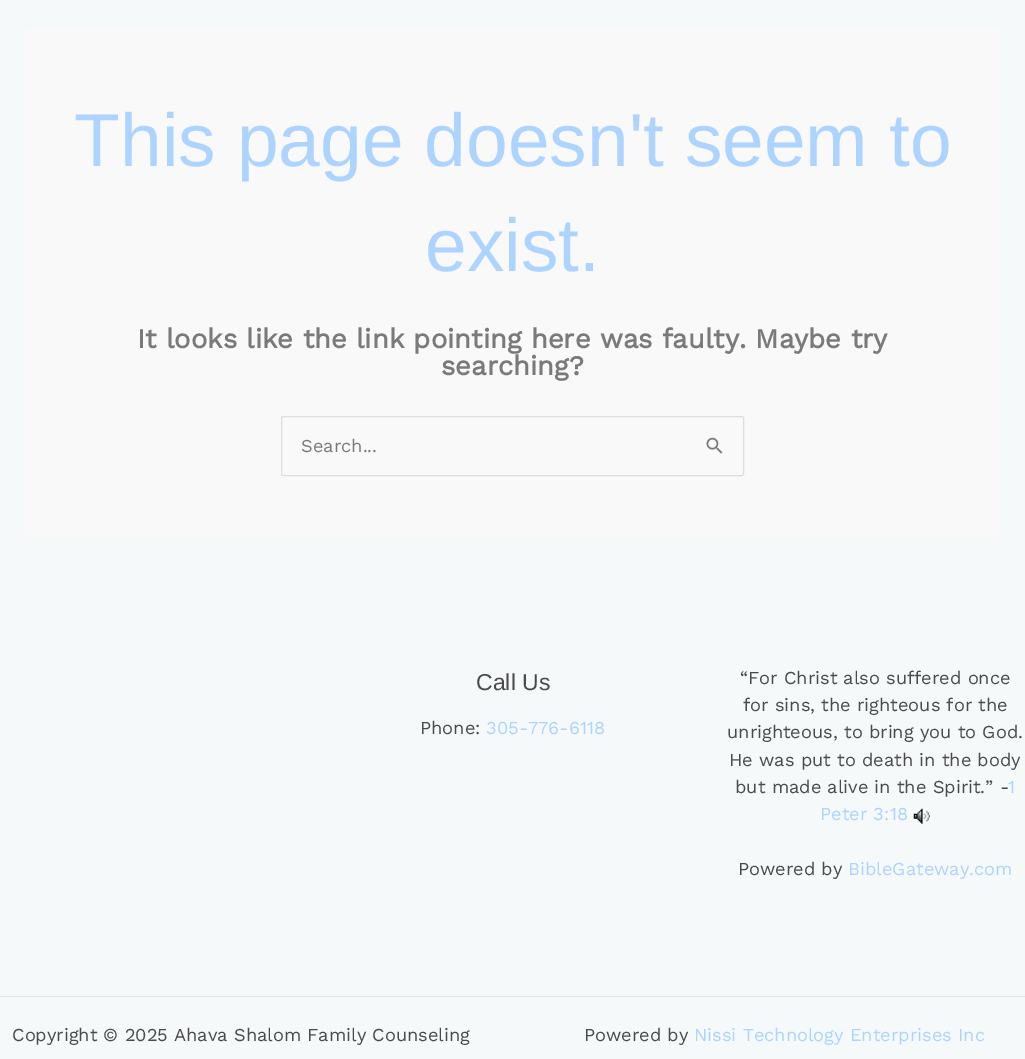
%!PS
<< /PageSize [1025 1059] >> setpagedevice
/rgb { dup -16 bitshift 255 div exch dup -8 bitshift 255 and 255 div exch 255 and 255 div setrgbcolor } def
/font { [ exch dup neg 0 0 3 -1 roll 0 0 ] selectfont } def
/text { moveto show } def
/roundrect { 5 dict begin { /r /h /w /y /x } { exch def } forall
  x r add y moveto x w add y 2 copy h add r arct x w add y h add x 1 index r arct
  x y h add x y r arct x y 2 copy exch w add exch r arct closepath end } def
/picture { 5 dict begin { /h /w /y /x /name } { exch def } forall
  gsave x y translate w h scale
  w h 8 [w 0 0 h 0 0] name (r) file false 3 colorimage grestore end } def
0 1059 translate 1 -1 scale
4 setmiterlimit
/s1 { /LiberationSans-Regular 75 font 16#ADD4FF rgb } def
/s2 { /WorkSans-Bold 27.35 font 16#7A7A7A rgb } def
/s3 { /WorkSans-Regular 18.25 font 16#7A7A7A rgb } def
/s4 { /LiberationSans-Regular 23 font 16#4A4A4A rgb } def
/s5 { /WorkSans-Regular 18.25 font 16#4A4A4A rgb } def
/s6 { /WorkSans-Regular 18.25 font 16#ADD4FF rgb } def
16#F6F9F9 rgb
0 0 1025 1059 rectfill
16#F9F9F9 rgb
25 28 975 510 rectfill
s1
(This page doesn't seem to) 74 166 text
(exist.) 425 271 text
s2
(It looks like the link pointing here was faulty. Maybe try) 137 348 text
(searching?) 441 375 text
16#DDDDDD rgb
281.5 416.5 462 59 2 roundrect stroke
s3
(Search...) 301 452 text
(pic1.raw) 706 437 17 17 picture
s4
(Call Us) 476 690 text
s5
(Phone:) 420 734 text
s6
(305-776-6118) 486 734 text
s5
(“For Christ also suffered once) 740 684 text
(for sins, the righteous for the) 743 711 text
(unrighteous, to bring you to God.) 727 738 text
(He was put to death in the body) 729 766 text
(but made alive in the Spirit.” -) 735 793 text
s6
(1) 1008 793 text
(Peter 3:18) 820 820 text
(pic2.raw) 913 808 17 16 picture
s5
(Powered by) 738 875 text
s6
(BibleGateway.com) 848 875 text
16#E2E3E3 rgb
0 996 1025 1 rectfill
s5
(Copyright © 2025 Ahava Shalom Family Counseling) 12 1041 text
(Powered by) 584 1041 text
s6
(Nissi Technology Enterprises Inc) 694 1041 text
showpage
